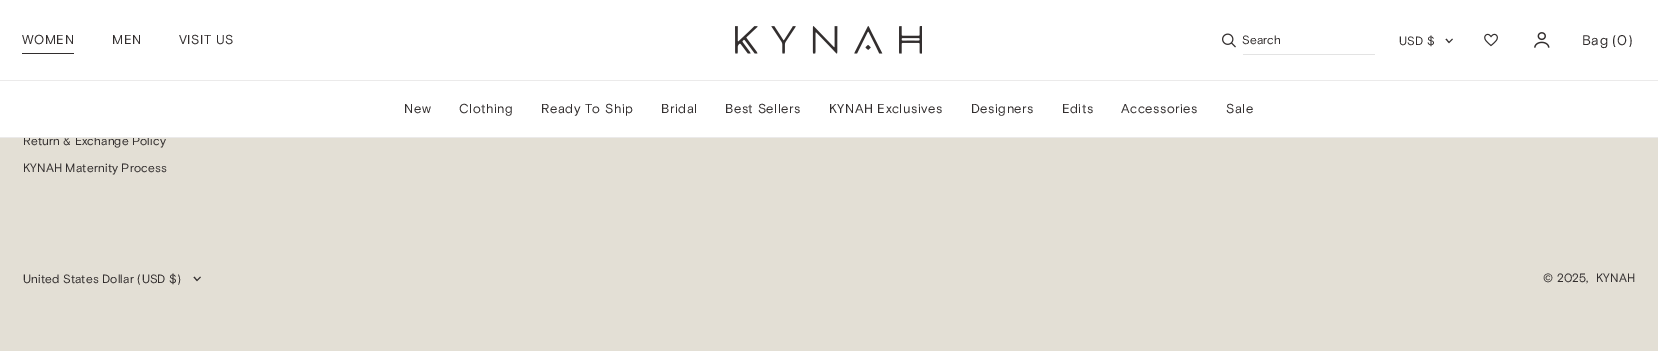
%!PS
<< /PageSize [1658 351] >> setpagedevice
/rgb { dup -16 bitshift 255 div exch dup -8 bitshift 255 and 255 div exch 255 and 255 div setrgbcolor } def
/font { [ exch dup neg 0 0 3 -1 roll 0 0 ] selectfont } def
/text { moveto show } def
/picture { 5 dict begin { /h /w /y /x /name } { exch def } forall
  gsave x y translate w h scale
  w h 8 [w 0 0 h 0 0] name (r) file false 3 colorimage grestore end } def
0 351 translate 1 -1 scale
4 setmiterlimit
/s1 { /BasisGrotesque-Regular 12 font 16#322E2E rgb } def
16#E3DFD5 rgb
0 0 1658 351 rectfill
16#FFFFFF rgb
0 0 1658 80 rectfill
(pic1.raw) 735 26 187 28 picture
/BasisGrotesque-Regular 13 font
16#322E2E rgb
22 44 moveto 0.5 0 (WOMEN) ashow
22 53 52 1 rectfill
/BasisGrotesque-Regular 12 font
23 145 moveto 0.1 0 (Return & Exchange Policy) ashow
16#FFFFFF rgb
0 81 1658 56 rectfill
16#EBEAEA rgb
0 80 1658 1 rectfill
0 137 1658 1 rectfill
/BasisGrotesque-Regular 13 font
16#322E2E rgb
404 113 moveto 0.5 0 (New) ashow
459 113 moveto 0.5 0 (Clothing) ashow
541 113 moveto 0.5 0 (Ready To Ship) ashow
661 113 moveto 0.5 0 (Bridal) ashow
725 113 moveto 0.5 0 (Best Sellers) ashow
829 113 moveto 0.5 0 (KYNAH Exclusives) ashow
971 113 moveto 0.5 0 (Designers) ashow
1062 113 moveto 0.5 0 (Edits) ashow
1121 113 moveto 0.5 0 (Accessories) ashow
1226 113 moveto 0.5 0 (Sale) ashow
112 44 moveto 0.5 0 (MEN) ashow
179 44 moveto 0.5 0 (VISIT US) ashow
(pic2.raw) 1222 33 14 15 picture
s1
(Search) 1242 44 text
16#E3E3E3 rgb
1243 54 132 1 rectfill
16#322E2E rgb
1399 45 moveto 0.1 0 (USD $) ashow
1446 39 moveto 1449 42.5 lineto 1452.5 39 lineto stroke
(pic3.raw) 1484 33 14 14 picture
(pic4.raw) 1534 32 16 16 picture
/BasisGrotesque-Regular 14 font
1582 45 moveto 0.5 0 (Bag) ashow
1612 45 moveto 0.5 0 (\(0\)) ashow
/BasisGrotesque-Regular 12 font
23 172 moveto 0.1 0 (KYNAH Maternity Process) ashow
23 283 moveto 0.1 0 (United States Dollar \(USD $\)) ashow
194 277 moveto 197 280.5 lineto 200.5 277 lineto stroke
1543 282 moveto 0.1 0 (© 2025,) ashow
1596 282 moveto 0.1 0 (KYNAH) ashow
showpage
